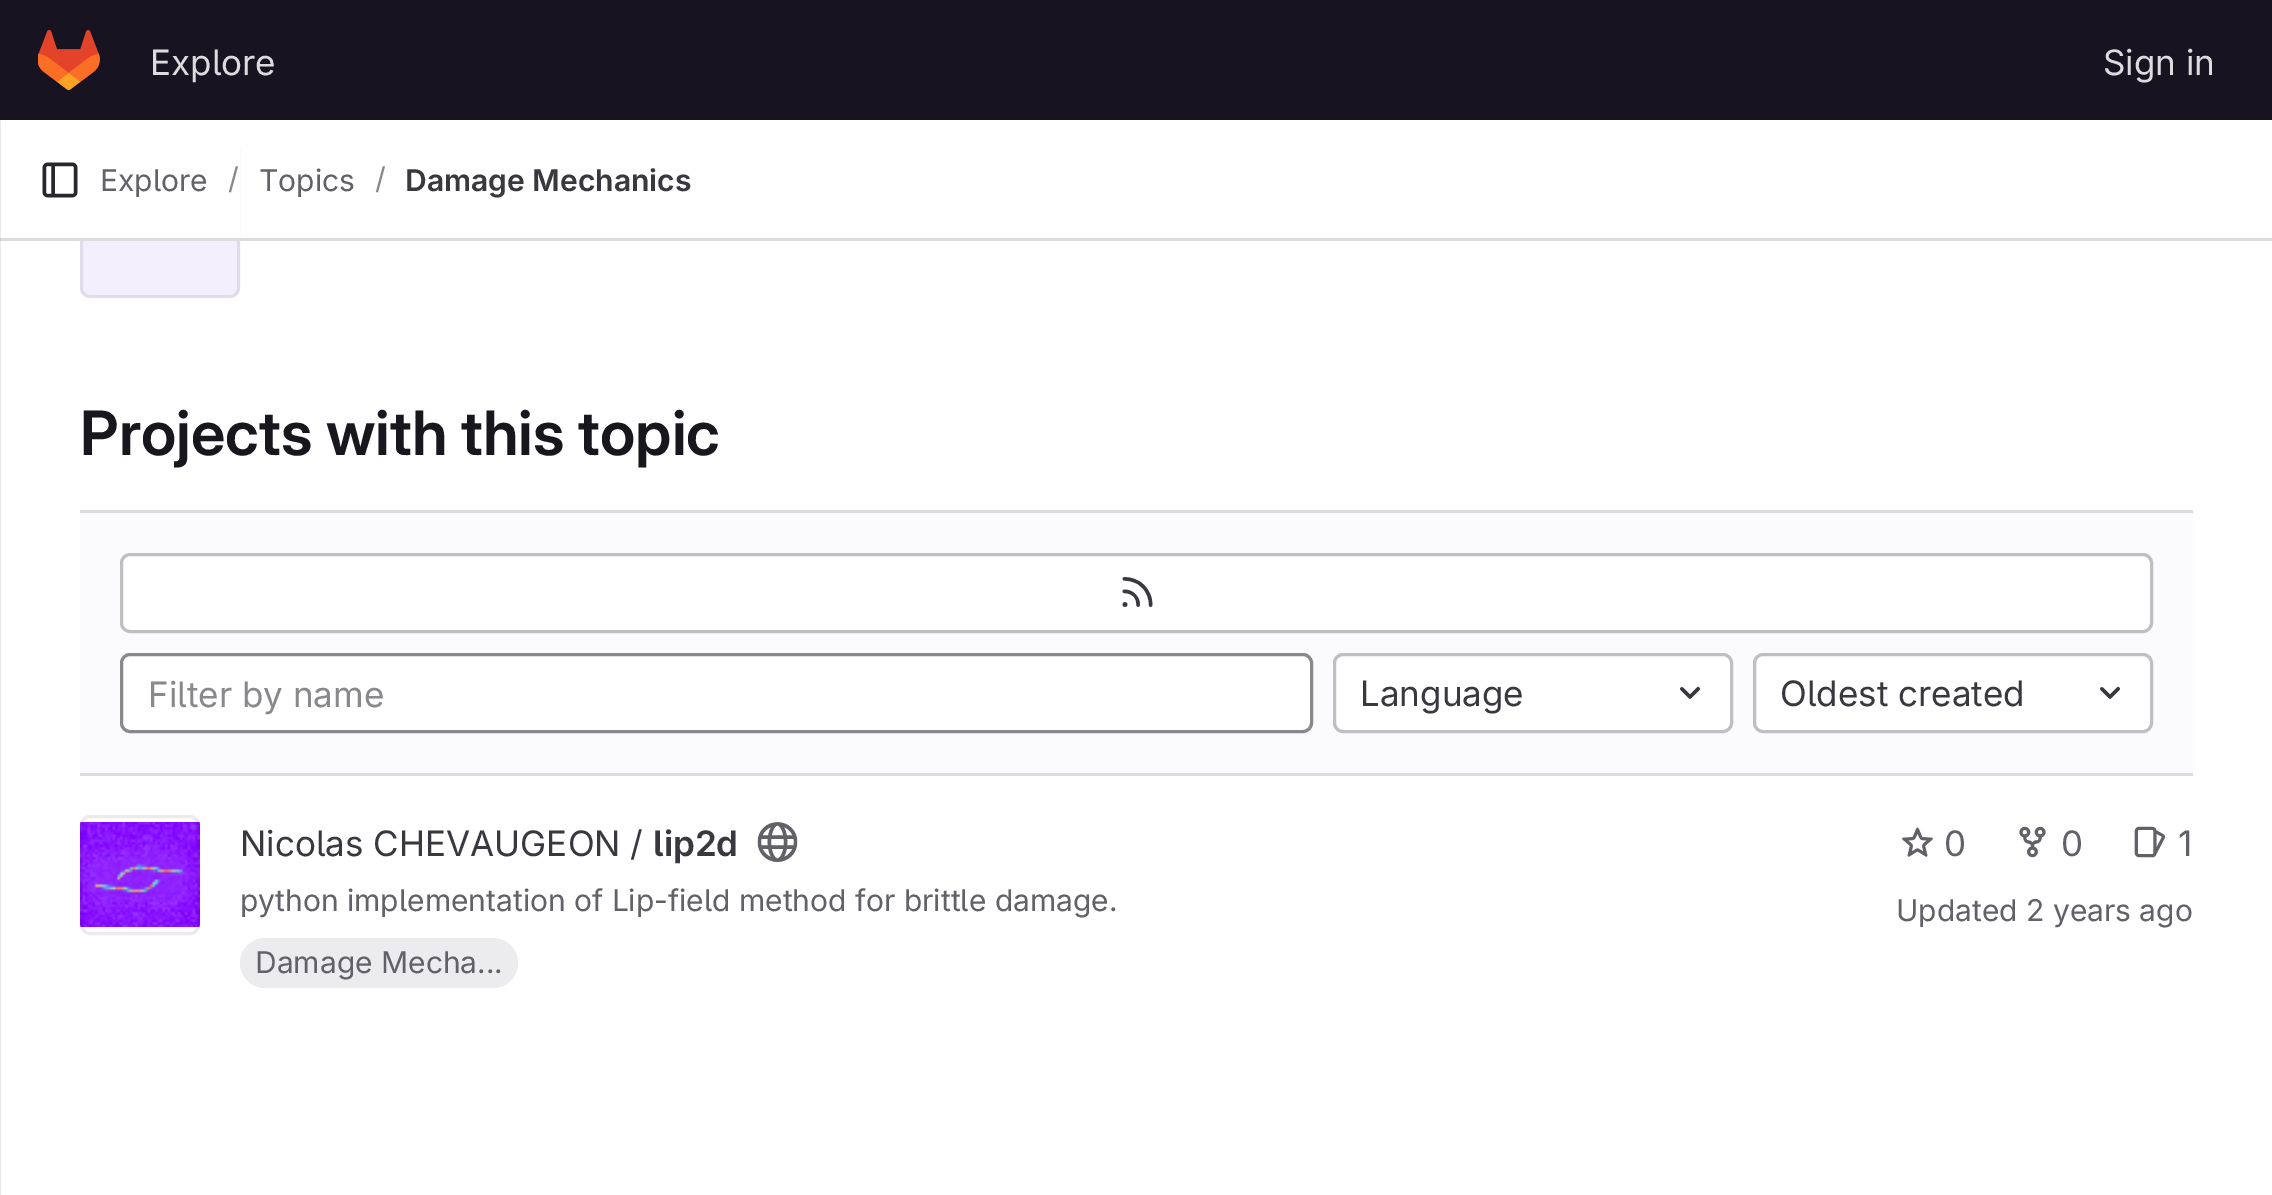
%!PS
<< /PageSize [2272 1195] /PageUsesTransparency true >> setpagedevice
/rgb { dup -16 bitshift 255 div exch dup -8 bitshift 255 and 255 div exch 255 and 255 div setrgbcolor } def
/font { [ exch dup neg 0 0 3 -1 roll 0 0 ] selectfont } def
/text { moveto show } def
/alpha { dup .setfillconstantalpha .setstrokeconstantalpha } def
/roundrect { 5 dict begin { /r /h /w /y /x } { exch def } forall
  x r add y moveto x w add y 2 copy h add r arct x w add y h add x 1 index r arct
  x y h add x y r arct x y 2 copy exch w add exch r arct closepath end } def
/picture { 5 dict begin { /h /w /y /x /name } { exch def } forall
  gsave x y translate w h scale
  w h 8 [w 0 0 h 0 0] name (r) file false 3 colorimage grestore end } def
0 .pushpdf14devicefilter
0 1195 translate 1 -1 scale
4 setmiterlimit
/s1 { /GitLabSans-Regular 35 font 16#DCDCDE rgb } def
/s2 { /GitLabSans-Regular 30 font 16#626168 rgb } def
/s3 { /GitLabSans-Regular 30 font 16#89888D rgb } def
/s4 { /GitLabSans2-SemiBold 30 font 16#3A383F rgb } def
/s5 { /GitLabSans-SemiBold 61.25 font 16#18171D rgb } def
/s6 { /GitLabSans-Regular 35 font 16#89888D rgb } def
/s7 { /GitLabSans-Regular 35 font 16#3A383F rgb } def
/s8 { /GitLabSans2-SemiBold 35 font 16#3A383F rgb } def
/s9 { /GitLabSans-Regular 35 font 16#626168 rgb } def
16#FFFFFF rgb
0 0 2272 1195 rectfill
16#EBEBEB rgb
0 241 1 954 rectfill
16#171321 rgb
0 0 2272 120 rectfill
(pic1.raw) 38 30 62 60 picture
s1
(Explore) 150 75 text
(Sign in) 2103 75 text
16#F3EFFC rgb
80 138 160 160 10 roundrect fill
0.08 alpha
16#050506 rgb
3 setlinewidth
81.5 139.5 157 157 8.5 roundrect stroke
1 alpha
16#FFFFFF rgb
80 138 160 100 rectfill
16#EBEBEB rgb
0 120 1 120 rectfill
16#DCDCDE rgb
0 238 2272 3 rectfill
16#CBCBCD rgb
0 238 1 3 rectfill
(pic2.raw) 42 162 36 36 picture
s2
(Explore) 100 191 text
s3
(/) 228 189 text
s2
(Topics) 259 191 text
s3
(/) 375 189 text
s4
(Damage Mechanics) 405 191 text
16#DCDCDE rgb
80 510 2113 3 rectfill
s5
(Projects with this topic) 80 455 text
16#FBFAFD rgb
80 513 2113 260 rectfill
16#DCDCDE rgb
80 773 2113 3 rectfill
16#FFFFFF rgb
121.5 554.5 2030 77 8.5 roundrect gsave fill grestore
16#BFBFC3 rgb
stroke
(pic3.raw) 1122 577 31 30 picture
16#FFFFFF rgb
121.5 654.5 1190 77 8.5 roundrect gsave fill grestore
16#89888D rgb
stroke
s6
(Filter by name) 148 707 text
16#FFFFFF rgb
1334.5 654.5 397 77 8.5 roundrect gsave fill grestore
16#BFBFC3 rgb
stroke
s7
(Language) 1360 706 text
(pic4.raw) 1680 686 21 13 picture
16#FFFFFF rgb
1754.5 654.5 397 77 8.5 roundrect gsave fill grestore
16#BFBFC3 rgb
stroke
s7
(Oldest created) 1780 706 text
(pic4.raw) 2100 686 21 13 picture
(pic5.raw) 80 822 120 105 picture
0.08 alpha
16#050506 rgb
81.5 816.5 117 117 8.5 roundrect stroke
1 alpha
s7
(Nicolas CHEVAUGEON /) 240 856 text
s8
(lip2d) 653 856 text
(pic6.raw) 757 822 41 40 picture
s2
(python implementation of Lip-field method for brittle damage.) 240 911 text
16#ECECEF rgb
240 938 278 50 25 roundrect fill
s2
(Damage Mecha...) 255 973 text
(pic7.raw) 1902 827 31 30 picture
s9
(0) 1944 856 text
(pic8.raw) 2019 826 27 32 picture
(0) 2061 856 text
(pic9.raw) 2134 826 31 32 picture
(1) 2178 856 text
s2
(Updated 2 years ago) 1896 921 text
.poppdf14devicefilter showpage
